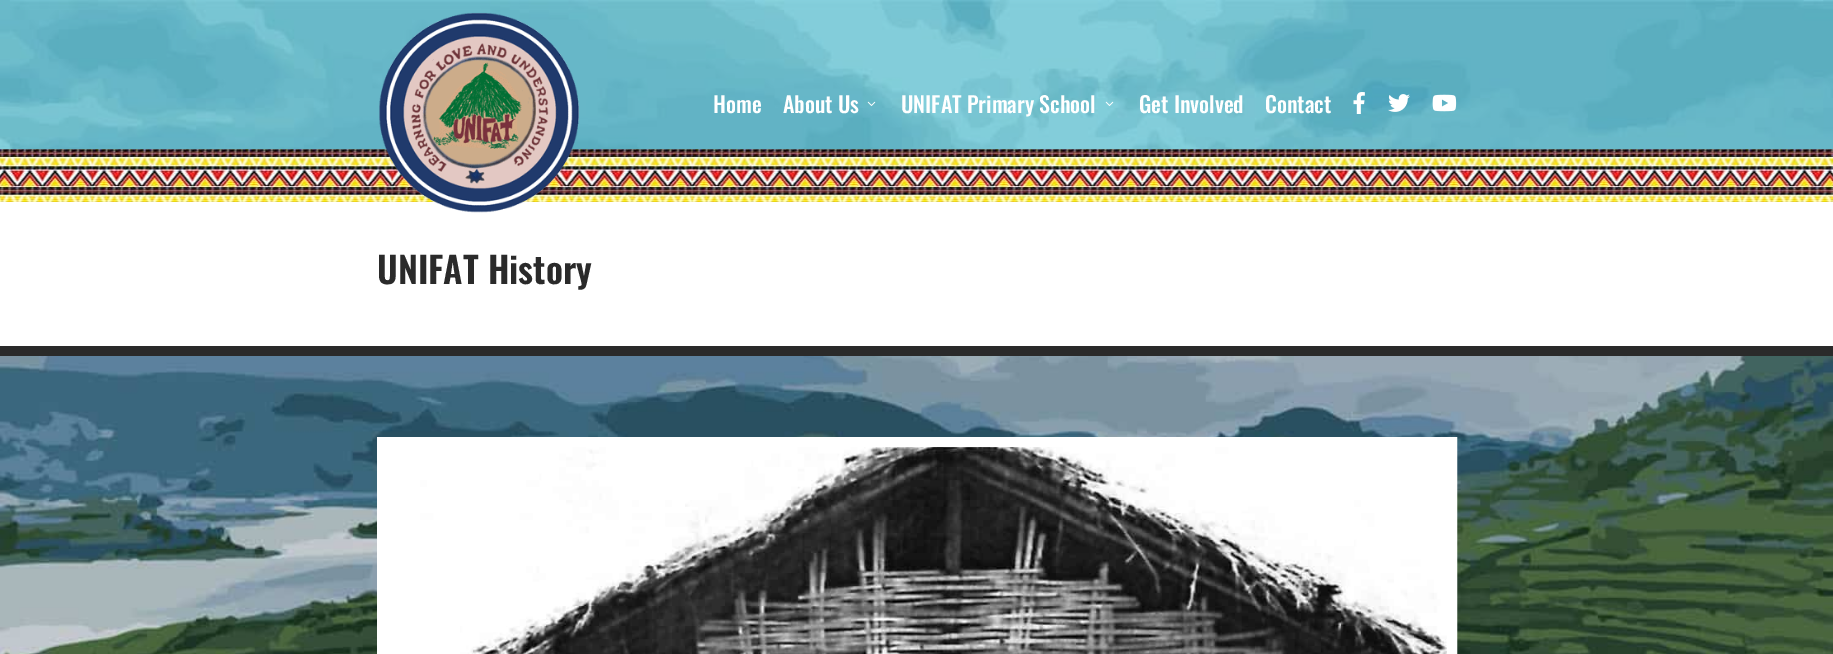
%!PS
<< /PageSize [1833 654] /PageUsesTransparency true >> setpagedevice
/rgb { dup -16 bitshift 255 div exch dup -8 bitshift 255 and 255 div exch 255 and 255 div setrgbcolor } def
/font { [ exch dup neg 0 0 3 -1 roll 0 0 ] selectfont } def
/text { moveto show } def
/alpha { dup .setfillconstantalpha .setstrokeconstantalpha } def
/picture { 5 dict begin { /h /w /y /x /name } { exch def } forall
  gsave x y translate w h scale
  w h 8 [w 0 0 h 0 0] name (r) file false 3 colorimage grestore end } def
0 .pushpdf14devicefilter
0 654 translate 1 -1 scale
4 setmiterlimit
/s1 { /Oswald-Medium 22 font 16#FFFFFF rgb } def
/s2 { /Oswald-SemiBold 36 font 16#2A2A2A rgb } def
16#FFFFFF rgb
0 0 1833 654 rectfill
(pic1.raw) 0 0 1833 654 picture
0.58 alpha
16#44C2D6 rgb
0 0 1833 149 rectfill
1 alpha
(pic8.raw) 0 149 1833 53 picture
16#FFFFFF rgb
0 202 1833 144 rectfill
(pic2.raw) 379 12 200 201 picture
s1
(Home) 713 113 text
(About Us) 783 113 text
(pic3.raw) 867 101 9 5 picture
(UNIFAT Primary School) 901 113 text
(pic4.raw) 1105 101 9 5 picture
(Get Involved) 1139 113 text
(Contact) 1265 113 text
(pic5.raw) 1353 92 12 22 picture
(pic6.raw) 1388 94 22 18 picture
(pic7.raw) 1432 94 25 18 picture
16#2A2A2A rgb
0 346 1833 10 rectfill
s2
(UNIFAT History) 377 284 text
16#FFFFFF rgb
10 setlinewidth
382 442 1070 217 rectstroke
(pic9.raw) 387 447 1060 207 picture
.poppdf14devicefilter showpage
